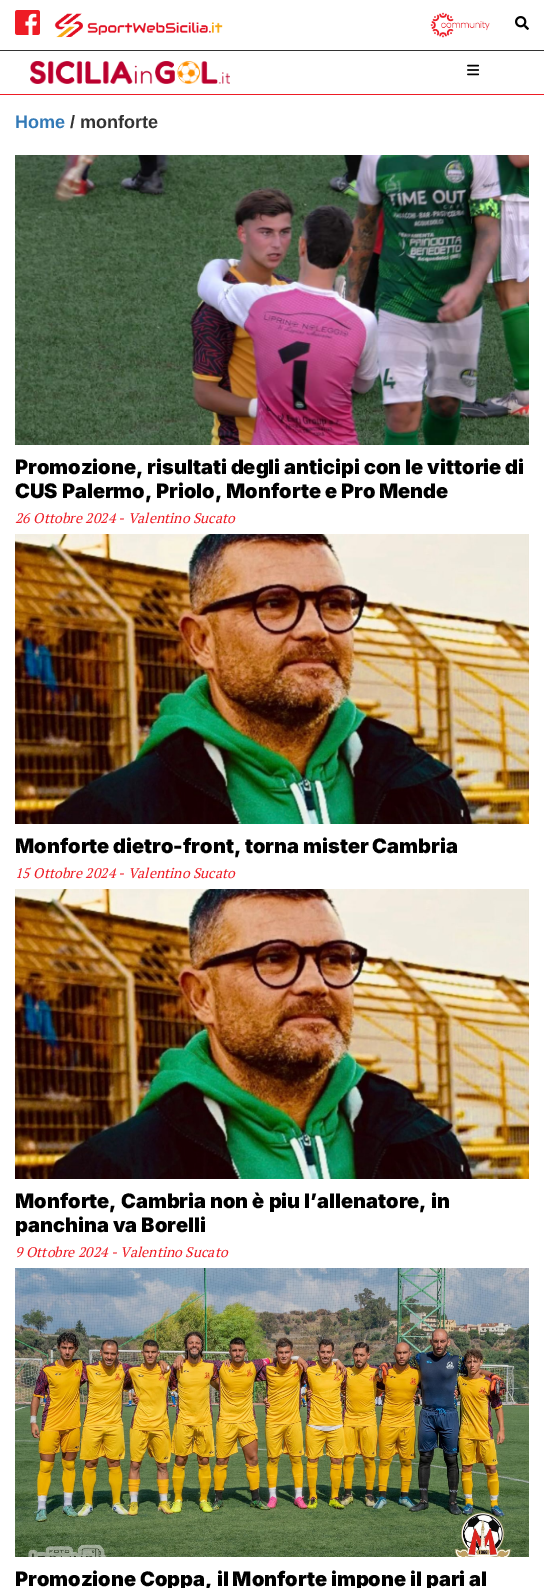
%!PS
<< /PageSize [544 1588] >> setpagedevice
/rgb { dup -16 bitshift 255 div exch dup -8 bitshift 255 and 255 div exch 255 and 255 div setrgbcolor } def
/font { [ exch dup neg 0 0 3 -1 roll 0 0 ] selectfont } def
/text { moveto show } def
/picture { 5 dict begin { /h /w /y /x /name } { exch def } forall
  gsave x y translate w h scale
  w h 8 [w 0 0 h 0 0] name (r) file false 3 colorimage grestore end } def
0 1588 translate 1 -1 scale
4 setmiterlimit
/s1 { /LiberationSans-Bold 18 font 16#337AB7 rgb } def
/s2 { /LiberationSans-Bold 18 font 16#333333 rgb } def
/s3 { /Inter-Black 20 font 16#000000 rgb } def
/s4 { /PTSerif-Italic 14 font 16#EE1C25 rgb } def
16#FFFFFF rgb
0 0 544 1588 rectfill
(pic1.raw) 15 10 25 25 picture
(pic2.raw) 54 13 169 25 picture
(pic3.raw) 430 12 60 26 picture
(pic4.raw) 515 16 14 14 picture
16#333333 rgb
0 50 544 1 rectfill
16#EE1C25 rgb
0 94 544 1 rectfill
(pic5.raw) 30 61 200 23 picture
(pic6.raw) 467 64 12 12 picture
s1
(Home) 15 128 text
s2
(/ monforte) 70 128 text
(pic7.raw) 15 155 514 290 picture
s3
(Promozione, risultati degli anticipi con le vittorie di) 15 474 text
(CUS Palermo, Priolo, Monforte e Pro Mende) 15 498 text
s4
(26 Ottobre 2024 - Valentino Sucato) 15 523 text
(pic8.raw) 15 534 514 290 picture
s3
(Monforte dietro-front, torna mister Cambria) 15 853 text
s4
(15 Ottobre 2024 - Valentino Sucato) 15 878 text
(pic8.raw) 15 889 514 290 picture
s3
(Monforte, Cambria non è piu l’allenatore, in) 15 1208 text
(panchina va Borelli) 15 1232 text
s4
(9 Ottobre 2024 - Valentino Sucato) 15 1257 text
(pic9.raw) 15 1268 514 289 picture
s3
(Promozione Coppa, il Monforte impone il pari al) 15 1586 text
showpage
